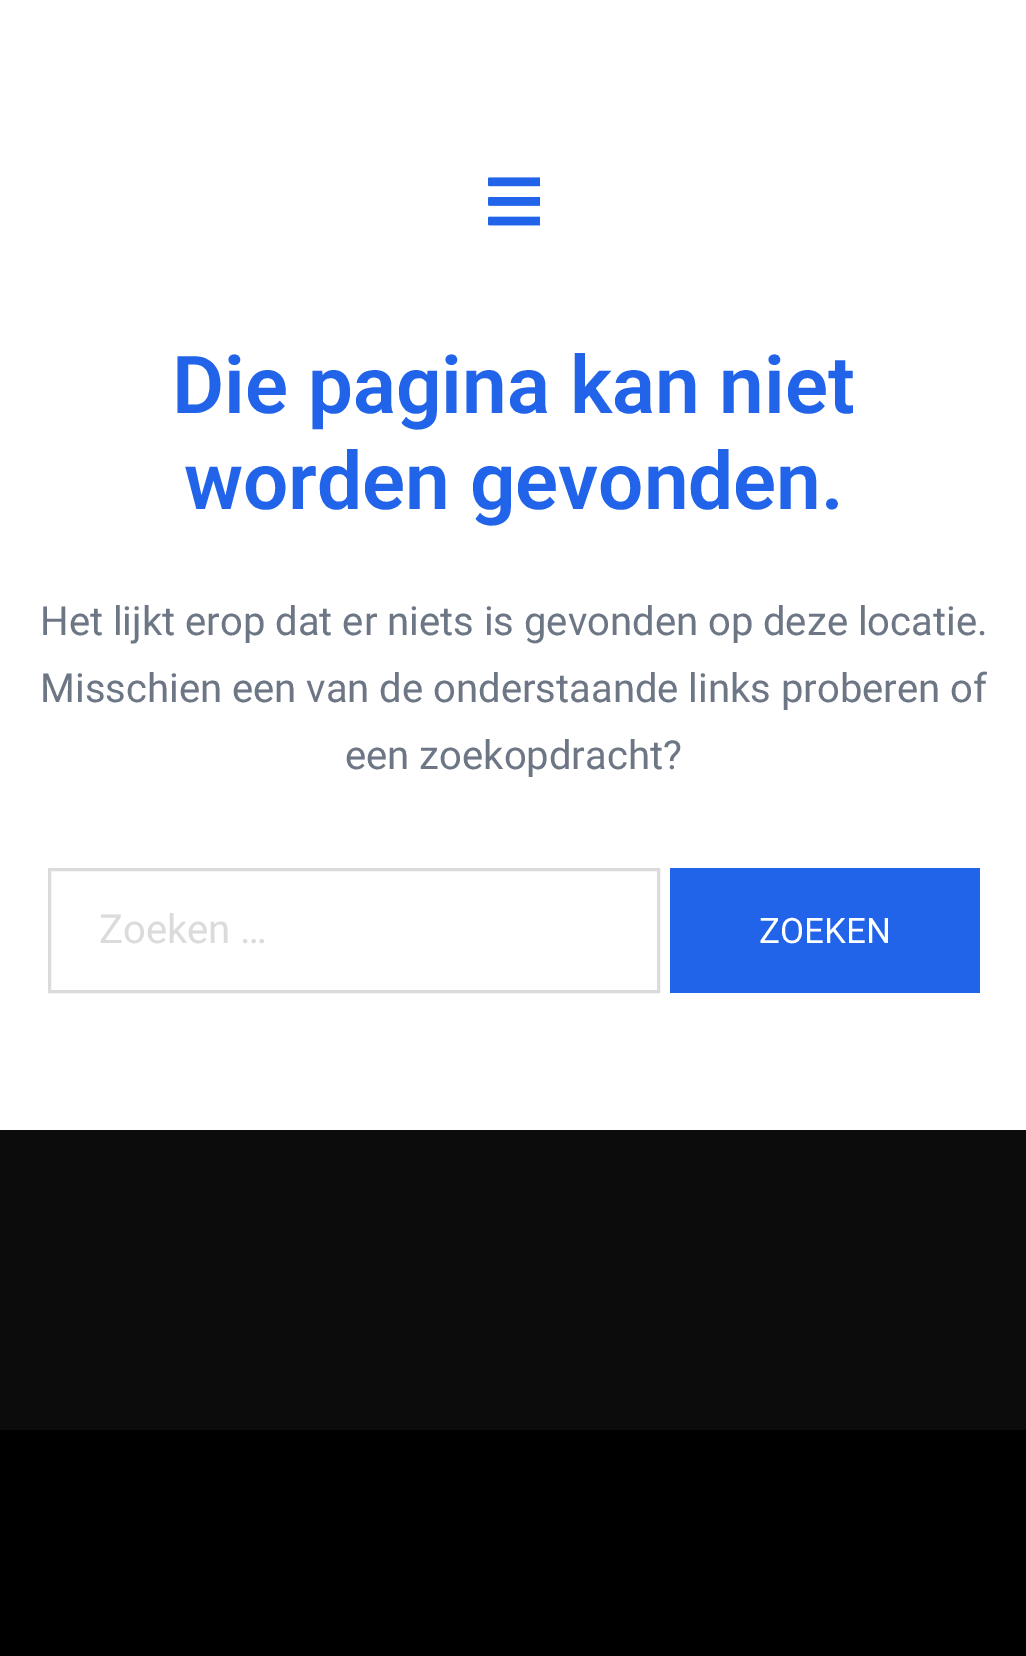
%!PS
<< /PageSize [1026 1656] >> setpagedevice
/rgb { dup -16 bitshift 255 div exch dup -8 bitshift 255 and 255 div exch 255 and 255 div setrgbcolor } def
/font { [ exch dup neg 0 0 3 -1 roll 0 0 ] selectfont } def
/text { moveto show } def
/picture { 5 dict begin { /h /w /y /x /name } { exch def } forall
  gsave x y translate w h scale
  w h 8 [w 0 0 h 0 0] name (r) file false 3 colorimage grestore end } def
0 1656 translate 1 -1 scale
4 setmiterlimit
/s1 { /Roboto-SemiBold 80 font 16#2264E9 rgb } def
/s2 { /Roboto-Regular 40 font 16#6D7685 rgb } def
/s3 { /Roboto-Regular 40 font 16#DBDBDB rgb } def
/s4 { /Roboto-Regular 35 font 16#FFFFFF rgb } def
16#FFFFFF rgb
0 0 1026 1656 rectfill
(pic1.raw) 488 177 52 49 picture
s1
(Die pagina kan niet) 172 413 text
(worden gevonden.) 184 509 text
s2
(Het lijkt erop dat er niets is gevonden op deze locatie.) 40 635 text
(Misschien een van de onderstaande links proberen of) 40 702 text
(een zoekopdracht?) 345 769 text
16#DBDBDB rgb
3 setlinewidth
49.5 869.5 609 122 rectstroke
(Zoeken …) 99 943 text
16#2264E9 rgb
670 868 310 125 rectfill
s4
(ZOEKEN) 759 943 text
16#0C0C0C rgb
0 1130 1026 300 rectfill
16#000000 rgb
0 1430 1026 226 rectfill
showpage
